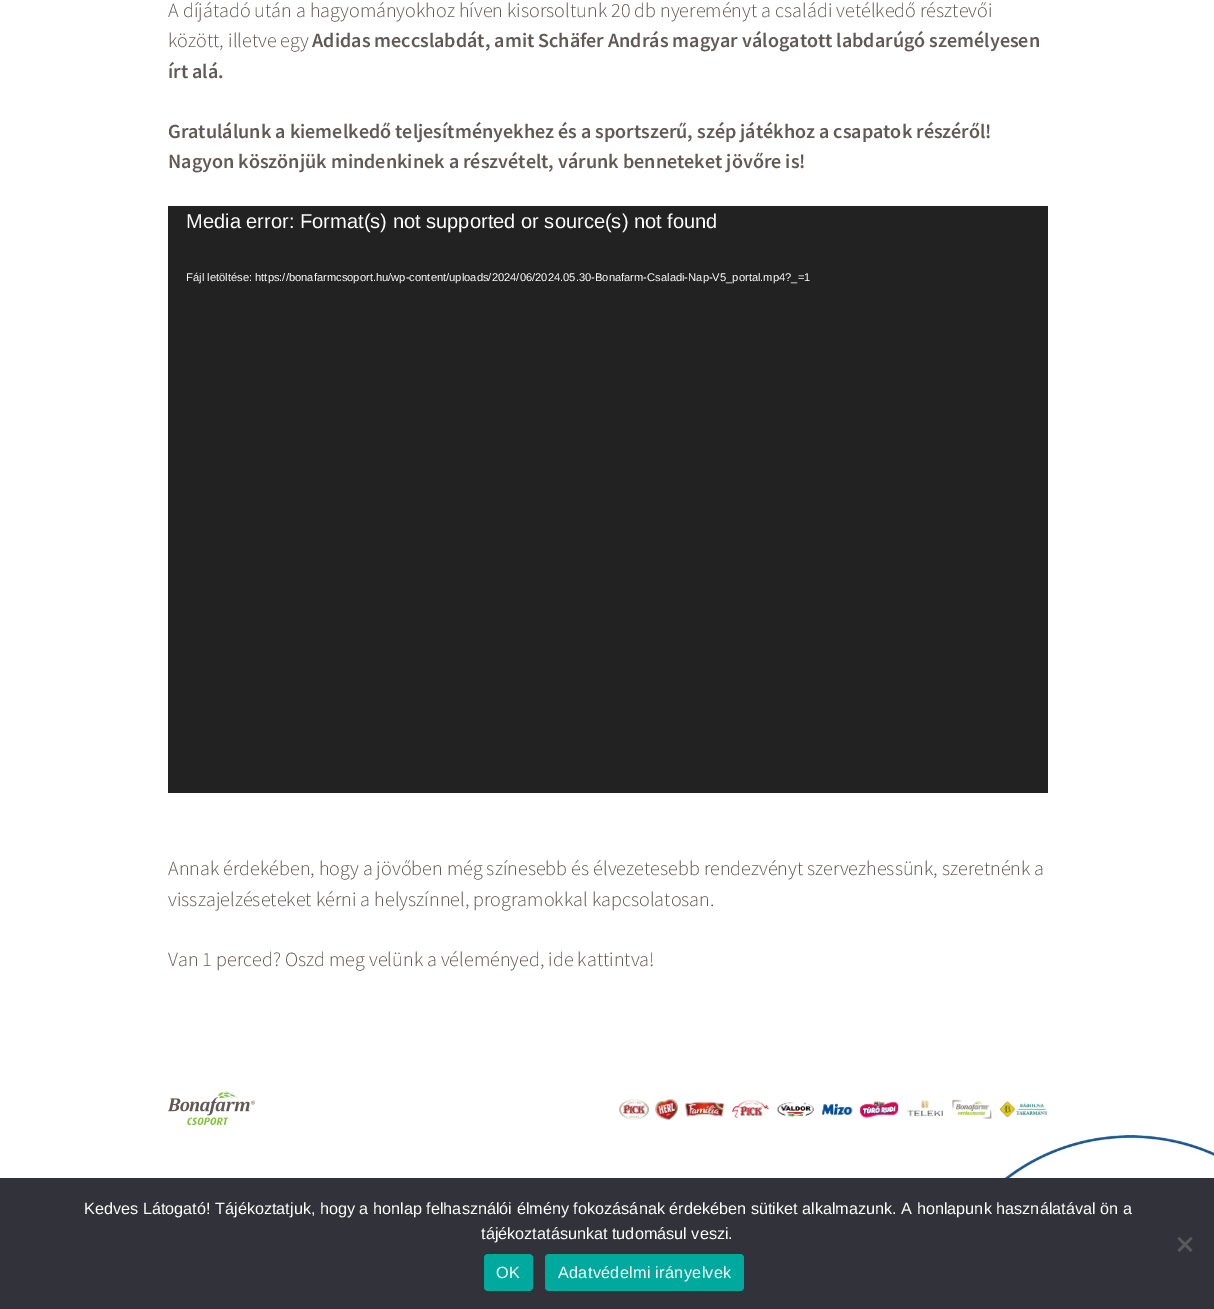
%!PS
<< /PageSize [1214 1309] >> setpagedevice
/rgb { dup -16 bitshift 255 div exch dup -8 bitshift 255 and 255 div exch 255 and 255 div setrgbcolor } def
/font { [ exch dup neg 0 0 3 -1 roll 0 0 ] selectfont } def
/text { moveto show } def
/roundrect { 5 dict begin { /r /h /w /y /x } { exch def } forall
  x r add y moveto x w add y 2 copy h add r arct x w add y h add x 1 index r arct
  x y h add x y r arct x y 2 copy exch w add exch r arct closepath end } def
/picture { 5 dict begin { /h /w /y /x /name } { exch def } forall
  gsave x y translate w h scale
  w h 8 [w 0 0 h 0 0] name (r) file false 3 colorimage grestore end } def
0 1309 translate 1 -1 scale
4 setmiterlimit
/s1 { /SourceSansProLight-Light 20.1 font 16#615956 rgb } def
/s2 { /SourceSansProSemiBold-SemiBold 20.1 font 16#615956 rgb } def
/s3 { /LiberationSans-Regular 20.1 font 16#FFFFFF rgb } def
/s4 { /LiberationSans-Regular 11.2 font 16#FFFFFF rgb } def
/s5 { /LiberationSans-Regular 16.25 font 16#FFFFFF rgb } def
16#FFFFFF rgb
0 0 1214 1309 rectfill
s1
(A díjátadó után a hagyományokhoz híven kisorsoltunk 20 db nyereményt a családi vetélkedő résztevői) 168 17 text
(között, illetve egy) 168 47 text
s2
(Adidas meccslabdát, amit Schäfer András magyar válogatott labdarúgó személyesen) 312 47 text
(írt alá.) 168 78 text
(Gratulálunk a kiemelkedő teljesítményekhez és a sportszerű, szép játékhoz a csapatok részéről!) 168 138 text
(Nagyon köszönjük mindenkinek a részvételt, várunk benneteket jövőre is!) 168 168 text
16#222222 rgb
168 206 880 587 rectfill
s3
(Media error: Format\(s\) not supported or source\(s\) not found) 186 228 text
s4
(Fájl letöltése: https://bonafarmcsoport.hu/wp-content/uploads/2024/06/2024.05.30-Bonafarm-Csaladi-Nap-V5_portal.mp4?_=1) 186 281 text
s1
(Annak érdekében, hogy a jövőben még színesebb és élvezetesebb rendezvényt szervezhessünk, szeretnénk a) 168 875 text
(visszajelzéseteket kérni a helyszínnel, programokkal kapcsolatosan.) 168 906 text
(Van 1 perced? Oszd meg velünk a véleményed, ide kattintva!) 168 966 text
(pic1.raw) 168 1091 87 34 picture
(pic2.raw) 618 1099 430 21 picture
(pic3.raw) 1004 1135 210 43 picture
16#32323A rgb
0 1178 1214 131 rectfill
s5
(Kedves Látogató! Tájékoztatjuk, hogy a honlap felhasználói élmény fokozásának érdekében sütiket alkalmazunk. A honlapunk használatával ön a) 84 1214 text
(tájékoztatásunkat tudomásul veszi.) 481 1239 text
16#59595D rgb
1190.5 1237 moveto 1192.5 1238.5 lineto 1179.5 1252 lineto 1177.5 1250 lineto closepath fill
1177.5 1238.5 moveto 1179.5 1237 lineto 1192.5 1250 lineto 1190.5 1252 lineto closepath fill
16#00A99D rgb
484 1254 49 37 4 roundrect fill
16#FFFFFF rgb
496 1278 moveto 0.3 0 (OK) ashow
16#00A99D rgb
545 1254 199 37 4 roundrect fill
16#FFFFFF rgb
558 1278 moveto 0.3 0 (Adatvédelmi irányelvek) ashow
showpage
